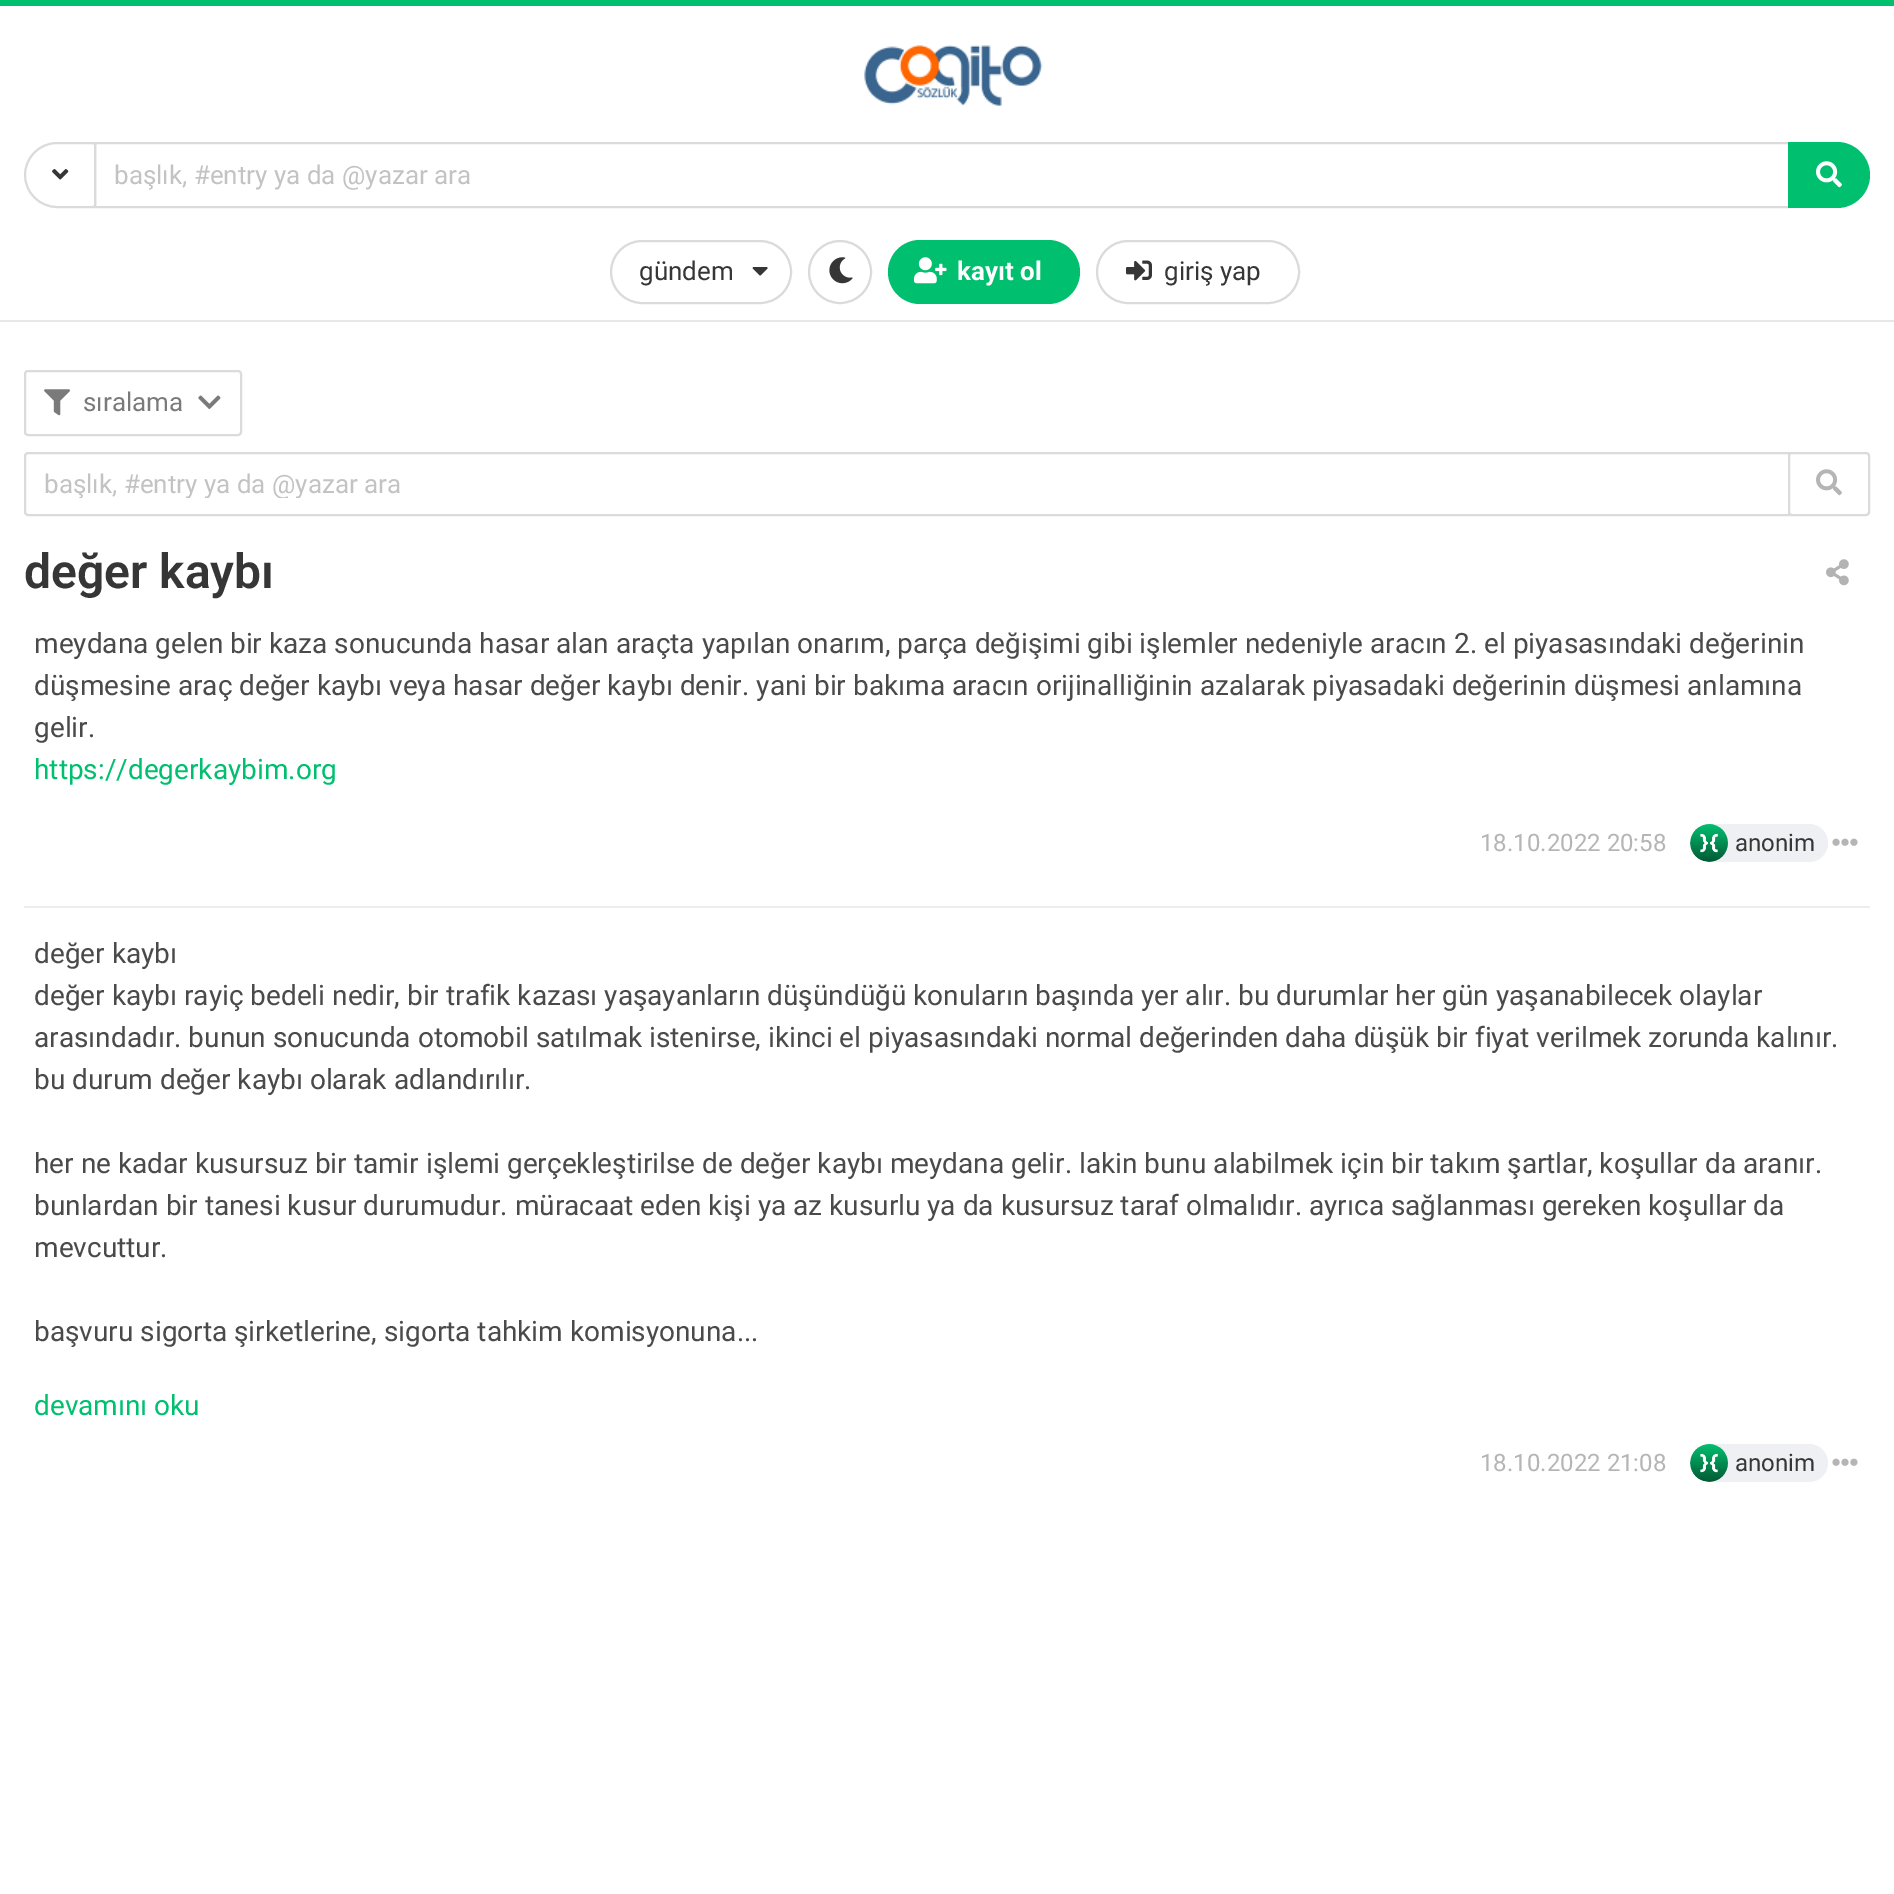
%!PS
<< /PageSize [1894 1894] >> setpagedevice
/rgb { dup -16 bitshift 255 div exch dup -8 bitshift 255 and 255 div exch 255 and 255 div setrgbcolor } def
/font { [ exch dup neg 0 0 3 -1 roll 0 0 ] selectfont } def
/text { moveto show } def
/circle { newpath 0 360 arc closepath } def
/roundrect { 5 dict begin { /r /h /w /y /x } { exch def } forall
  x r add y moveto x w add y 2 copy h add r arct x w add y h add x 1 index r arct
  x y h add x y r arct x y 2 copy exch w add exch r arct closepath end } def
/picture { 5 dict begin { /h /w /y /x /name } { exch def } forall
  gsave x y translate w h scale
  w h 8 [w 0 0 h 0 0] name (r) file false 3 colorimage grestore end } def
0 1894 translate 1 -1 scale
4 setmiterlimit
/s1 { /Roboto-Regular 26 font 16#C3C3C3 rgb } def
/s2 { /Roboto-Regular 26 font 16#363636 rgb } def
/s3 { /Roboto-Bold 26 font 16#FFFFFF rgb } def
/s4 { /Roboto-Regular 26 font 16#7A7A7A rgb } def
/s5 { /Roboto-SemiBold 48 font 16#363636 rgb } def
/s6 { /Roboto-Regular 28 font 16#4A4A4A rgb } def
/s7 { /Roboto-Regular 28 font 16#00BF6F rgb } def
/s8 { /Roboto-Regular 24 font 16#B5B5B5 rgb } def
/s9 { /Roboto-Regular 24 font 16#363636 rgb } def
16#FFFFFF rgb
0 0 1894 1894 rectfill
16#00BF6F rgb
0 0 1894 6 rectfill
16#E7E7E7 rgb
0 320 1894 2 rectfill
(pic1.raw) 864 45 179 61 picture
16#DBDBDB rgb
2 setlinewidth
57 143 moveto 93 143 lineto 94 143 95 144 95 145 curveto 95 205 lineto 95 206 94 207 93 207 curveto 57 207 lineto 39.5 207 25 192.5 25 175 curveto 25 157.5 39.5 143 57 143 curveto closepath stroke
(pic2.raw) 52 169 17 11 picture
95 143 1694 64 rectstroke
s1
(başlık, #entry ya da @yazar ara) 114 184 text
16#00BF6F rgb
1788 142 moveto 1837 142 lineto 1855 142 1870 157 1870 175 curveto 1870 193 1855 208 1837 208 curveto 1788 208 lineto closepath fill
(pic3.raw) 1816 161 26 27 picture
16#DBDBDB rgb
611 241 180 62 31 roundrect stroke
s2
(gündem) 639 280 text
(pic4.raw) 752 267 16 9 picture
16#DBDBDB rgb
840 272 31 circle stroke
(pic5.raw) 829 257 24 27 picture
16#00BF6F rgb
888 240 192 64 32 roundrect fill
(pic6.raw) 914 257 33 27 picture
s3
(kayıt ol) 957 280 text
16#DBDBDB rgb
1097 241 202 62 31 roundrect stroke
(pic7.raw) 1126 260 26 21 picture
s2
(giriş yap) 1164 280 text
16#DBDBDB rgb
25 371 216 64 3 roundrect stroke
(pic8.raw) 44 389 26 27 picture
s4
(sıralama) 83 411 text
(pic9.raw) 198 395 23 14 picture
16#DBDBDB rgb
28 453 moveto 1789 453 lineto 1789 515 lineto 28 515 lineto 26.5 515 25 513.5 25 512 curveto 25 456 lineto 25 454.5 26.5 453 28 453 curveto closepath stroke
gsave
44 468 1726 30 rectclip
s1
(başlık, #entry ya da @yazar ara) 44 493 text
grestore
16#FFFFFF rgb
1789 453 80 62 3 roundrect gsave fill grestore
16#DBDBDB rgb
stroke
(pic10.raw) 1816 469 26 27 picture
s5
(değer kaybı) 24 588 text
(pic11.raw) 1826 559 23 27 picture
s6
(meydana gelen bir kaza sonucunda hasar alan araçta yapılan onarım, parça değişimi gibi işlemler nedeniyle aracın 2. el piyasasındaki değerinin) 34 653 text
(düşmesine araç değer kaybı veya hasar değer kaybı denir. yani bir bakıma aracın orijinalliğinin azalarak piyasadaki değerinin düşmesi anlamına) 34 695 text
(gelir.) 34 737 text
s7
(https://degerkaybim.org) 34 779 text
s8
(18.10.2022 20:58) 1480 851 text
16#EEF0F3 rgb
1690 824 138 38 19 roundrect fill
(pic12.raw) 1690 824 38 38 picture
s9
(anonim) 1735 851 text
(pic13.raw) 1832 838 26 8 picture
16#EDEDED rgb
24 906 1846 2 rectfill
s6
(değer kaybı) 34 963 text
(değer kaybı rayiç bedeli nedir, bir trafik kazası yaşayanların düşündüğü konuların başında yer alır. bu durumlar her gün yaşanabilecek olaylar) 34 1005 text
(arasındadır. bunun sonucunda otomobil satılmak istenirse, ikinci el piyasasındaki normal değerinden daha düşük bir fiyat verilmek zorunda kalınır.) 34 1047 text
(bu durum değer kaybı olarak adlandırılır.) 34 1089 text
(her ne kadar kusursuz bir tamir işlemi gerçekleştirilse de değer kaybı meydana gelir. lakin bunu alabilmek için bir takım şartlar, koşullar da aranır.) 34 1173 text
(bunlardan bir tanesi kusur durumudur. müracaat eden kişi ya az kusurlu ya da kusursuz taraf olmalıdır. ayrıca sağlanması gereken koşullar da) 34 1215 text
(mevcuttur.) 34 1257 text
(başvuru sigorta şirketlerine, sigorta tahkim komisyonuna...) 34 1341 text
s7
(devamını oku) 34 1415 text
s8
(18.10.2022 21:08) 1480 1471 text
16#EEF0F3 rgb
1690 1444 138 38 19 roundrect fill
(pic12.raw) 1690 1444 38 38 picture
s9
(anonim) 1735 1471 text
(pic13.raw) 1832 1458 26 8 picture
showpage
